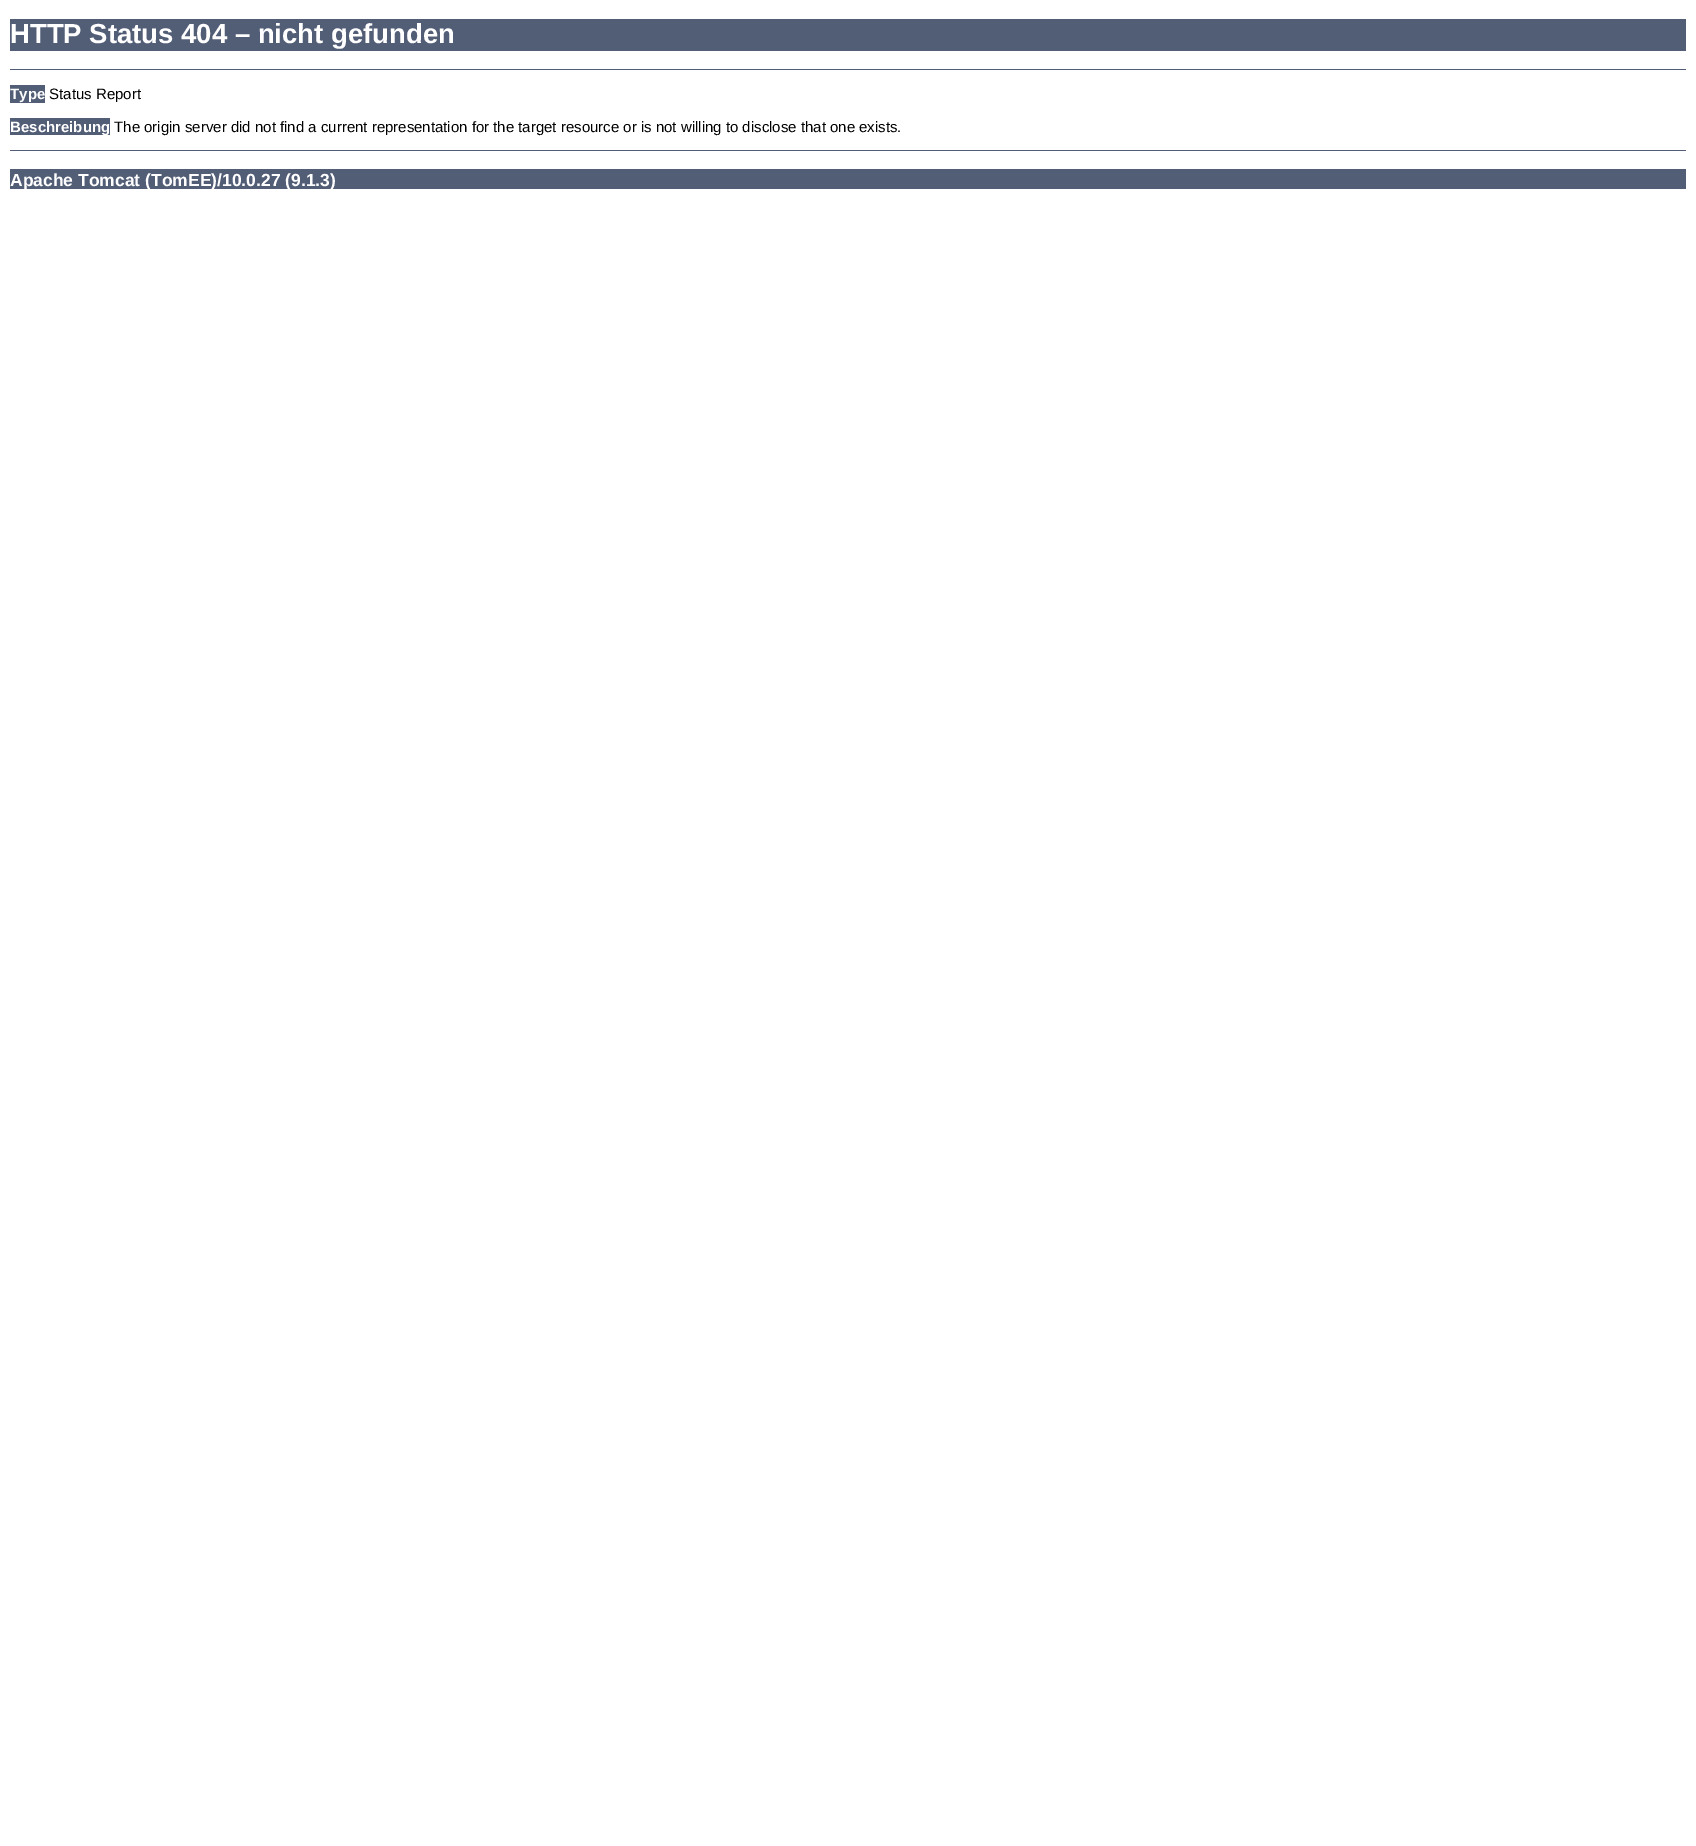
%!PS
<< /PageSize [1696 1846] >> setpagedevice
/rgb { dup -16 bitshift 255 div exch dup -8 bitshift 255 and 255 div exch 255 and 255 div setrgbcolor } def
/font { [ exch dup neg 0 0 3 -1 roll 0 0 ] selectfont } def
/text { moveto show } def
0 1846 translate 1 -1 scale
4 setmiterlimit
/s1 { /LiberationSans-Bold 27.5 font 16#FFFFFF rgb } def
/s2 { /LiberationSans-Bold 15 font 16#FFFFFF rgb } def
/s3 { /LiberationSans-Regular 15 font 16#000000 rgb } def
/s4 { /LiberationSans-Bold 17.5 font 16#FFFFFF rgb } def
16#FFFFFF rgb
0 0 1696 1846 rectfill
16#525D76 rgb
10 19 1676 32 rectfill
s1
(HTTP Status 404 – nicht gefunden) 10 43 text
16#525D76 rgb
10 69 1676 1 rectfill
10 85 35 18 rectfill
s2
(Type) 10 99 text
s3
(Status Report) 49 99 text
16#525D76 rgb
10 118 100 17 rectfill
s2
(Beschreibung) 10 132 text
s3
(The origin server did not find a current representation for the target resource or is not willing to disclose that one exists.) 114 132 text
16#525D76 rgb
10 150 1676 1 rectfill
10 169 1676 20 rectfill
s4
(Apache Tomcat \(TomEE\)/10.0.27 \(9.1.3\)) 10 186 text
showpage
